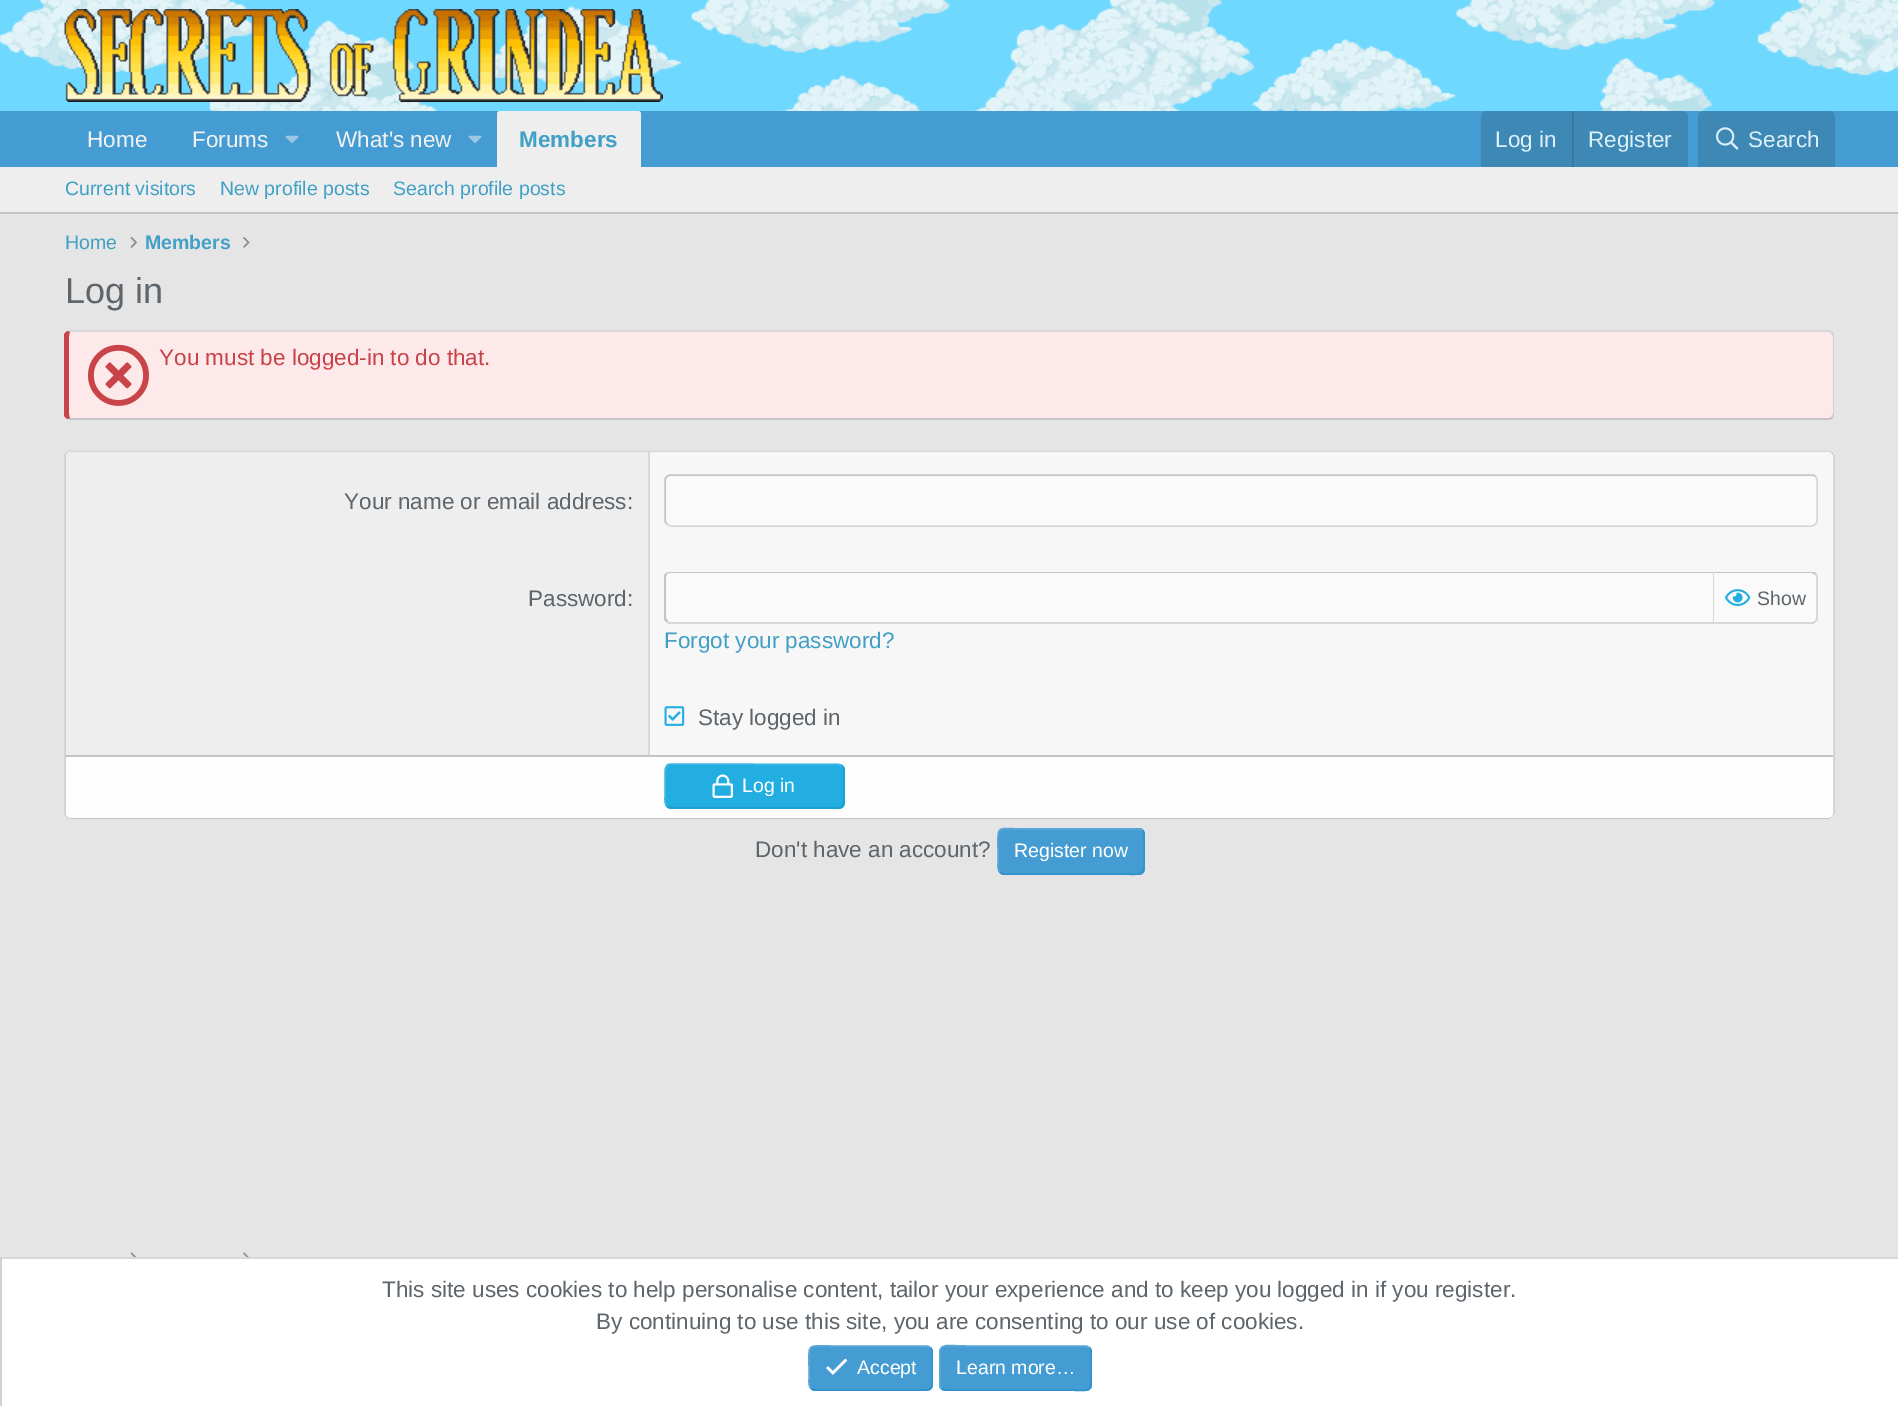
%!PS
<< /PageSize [1898 1406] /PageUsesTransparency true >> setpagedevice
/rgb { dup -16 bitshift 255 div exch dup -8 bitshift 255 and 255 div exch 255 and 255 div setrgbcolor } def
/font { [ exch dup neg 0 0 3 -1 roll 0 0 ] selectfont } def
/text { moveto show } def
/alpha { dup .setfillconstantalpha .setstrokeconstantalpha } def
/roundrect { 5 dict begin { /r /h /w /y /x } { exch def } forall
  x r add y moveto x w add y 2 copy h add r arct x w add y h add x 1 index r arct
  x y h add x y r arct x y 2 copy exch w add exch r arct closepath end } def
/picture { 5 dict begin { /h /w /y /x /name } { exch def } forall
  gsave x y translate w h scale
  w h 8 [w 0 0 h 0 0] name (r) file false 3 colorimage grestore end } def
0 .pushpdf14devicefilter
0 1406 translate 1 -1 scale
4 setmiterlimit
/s1 { /LiberationSans-Regular 22.5 font 16#F1F1F1 rgb } def
/s2 { /LiberationSans-Bold 22.5 font 16#41A0C6 rgb } def
/s3 { /LiberationSans-Regular 22.5 font 16#DBF0F9 rgb } def
/s4 { /LiberationSans-Regular 19.5 font 16#41A0C6 rgb } def
/s5 { /LiberationSans-Bold 19.5 font 16#41A0C6 rgb } def
/s6 { /LiberationSans-Regular 36 font 16#5E656B rgb } def
/s7 { /LiberationSans-Regular 22.5 font 16#C84448 rgb } def
/s8 { /LiberationSans-Regular 22.5 font 16#5E656B rgb } def
/s9 { /LiberationSans-Regular 19.5 font 16#5E656B rgb } def
/s10 { /LiberationSans-Regular 22.5 font 16#41A0C6 rgb } def
/s11 { /LiberationSans-Regular 19.5 font 16#FFFFFF rgb } def
16#E5E5E5 rgb
0 0 1898 1406 rectfill
(pic1.raw) 0 0 1898 111 picture
(pic2.raw) 64 9 599 93 picture
16#459CD2 rgb
0 111 1898 56 rectfill
s1
(Home) 87 147 text
(Forums) 192 147 text
(pic3.raw) 285 135 14 9 picture
(What's new) 336 147 text
(pic3.raw) 468 135 14 9 picture
16#EEEEEE rgb
500 111 moveto 638 111 lineto 639.5 111 641 112.5 641 114 curveto 641 167 lineto 497 167 lineto 497 114 lineto 497 112.5 498.5 111 500 111 curveto closepath fill
s2
(Members) 519 147 text
16#3E88B6 rgb
1487 111 moveto 1682 111 lineto 1685.5 111 1688 113.5 1688 117 curveto 1688 167 lineto 1481 167 lineto 1481 117 lineto 1481 113.5 1483.5 111 1487 111 curveto closepath fill
s3
(Log in) 1495 147 text
16#38779E rgb
1572 111 2 56 rectfill
s3
(Register) 1588 147 text
16#3E88B6 rgb
1704 111 moveto 1829 111 lineto 1832.5 111 1835 113.5 1835 117 curveto 1835 167 lineto 1698 167 lineto 1698 117 lineto 1698 113.5 1700.5 111 1704 111 curveto closepath fill
(pic4.raw) 1716 127 23 23 picture
s3
(Search) 1748 147 text
16#EEEEEE rgb
0 167 1898 45 rectfill
16#C4C4C4 rgb
0 212 1898 2 rectfill
s4
(Current visitors) 65 195 text
(New profile posts) 220 195 text
(Search profile posts) 393 195 text
(Home) 65 249 text
(pic5.raw) 130 237 7 11 picture
s5
(Members) 145 249 text
(pic6.raw) 243 237 7 11 picture
s6
(Log in) 65 303 text
16#FDE9E9 rgb
70 332 moveto 1828 332 lineto 1831 332 1833 334 1833 336 curveto 1833 414 lineto 1833 416 1831 418 1828 418 curveto 70 418 lineto 70 418 69 416 69 414 curveto 69 336 lineto 69 334 70 332 70 332 curveto closepath fill
16#D8D8D8 rgb
70 330 moveto 67 331 lineto 70 332 lineto 1828 332 lineto 1829 332 1831 332 1831 333 curveto 1833 332 lineto 1832 331 1830 330 1828 330 curveto closepath fill
16#D1D1D1 rgb
1833 332 moveto 1834 333 1834 335 1834 336 curveto 1834 414 lineto 1834 415 1834 417 1833 418 curveto 1831 417 lineto 1833 414 lineto 1833 336 lineto 1831 333 lineto closepath fill
16#C4C4C4 rgb
70 420 moveto 1828 420 lineto 1830 420 1832 419 1833 418 curveto 1831 417 lineto 1831 418 1829 418 1828 418 curveto 70 418 lineto 67 419 lineto closepath fill
16#C84448 rgb
70 332 moveto 70 332 69 334 69 336 curveto 69 414 lineto 69 416 70 418 70 418 curveto 67 419 lineto 64 416 lineto 64 334 lineto 67 331 lineto closepath fill
(pic7.raw) 88 344 61 62 picture
s7
(You must be logged-in to do that.) 159 365 text
16#F7F7F7 rgb
65 450 1770 369 6 roundrect fill
16#D8D8D8 rgb
1.5 setlinewidth
67 452.5 moveto 68 451.5 69 451 70.5 451 curveto 1828.5 451 lineto 1830 451 1831 451.5 1832 452.5 curveto stroke
16#D1D1D1 rgb
1832 452.5 moveto 1833 453.5 1834 454.5 1834 456 curveto 1834 813 lineto 1834 814.5 1833 815.5 1832 816.5 curveto stroke
16#C4C4C4 rgb
1832 816.5 moveto 1831 817.5 1830 818 1828.5 818 curveto 70.5 818 lineto 69 818 68 817.5 67 816.5 curveto stroke
16#D1D1D1 rgb
67 816.5 moveto 66 815.5 65 814.5 65 813 curveto 65 456 lineto 65 454.5 66 453.5 67 452.5 curveto stroke
16#EEEEEE rgb
71 452 moveto 650 452 lineto 650 549 lineto 66 549 lineto 66 457 lineto 66 454 68 452 71 452 curveto closepath fill
16#D8D8D8 rgb
648 452 2 303 rectfill
s8
(Your name or email address:) 344 509 text
16#FAFAFA rgb
665 474 1153 53 6 roundrect fill
16#D8D8D8 rgb
1815.5 476.5 moveto 1816.5 477.5 1817 478.5 1817 480 curveto 1817 520.5 lineto 1817 522 1816.5 523 1815.5 524 curveto 1814.5 525 1813.5 526 1812 526 curveto 670.5 526 lineto 669 526 668 525 667 524 curveto stroke
16#C4C4C4 rgb
667 524 moveto 666 523 665 522 665 520.5 curveto 665 480 lineto 665 478.5 666 477.5 667 476.5 curveto 668 475.5 669 475 670.5 475 curveto 1812 475 lineto 1813.5 475 1814.5 475.5 1815.5 476.5 curveto stroke
16#EEEEEE rgb
66 549 582 206 rectfill
s8
(Password:) 528 606 text
16#FAFAFA rgb
671 572 moveto 1713 572 lineto 1713 624 lineto 671 624 lineto 667.5 624 665 621.5 665 618 curveto 665 578 lineto 665 574.5 667.5 572 671 572 curveto closepath fill
16#C4C4C4 rgb
670 572 moveto 1713 572 lineto 1713 573 lineto 670 573 lineto 667 574 lineto 666 573 lineto closepath fill
16#D8D8D8 rgb
1713 624 moveto 1713 622 lineto 670 622 lineto 668 621 lineto 666 622 lineto 667 623 669 624 670 624 curveto closepath fill
16#C4C4C4 rgb
668 621 moveto 666 622 lineto 664 620 lineto 664 575 lineto 666 573 lineto 667 574 lineto 665 577 666 582 666 585 curveto 666 618 lineto closepath fill
16#FAFAFA rgb
1713 572 moveto 1812 572 lineto 1815.5 572 1818 574.5 1818 578 curveto 1818 618 lineto 1818 621.5 1815.5 624 1812 624 curveto 1713 624 lineto closepath fill
16#C4C4C4 rgb
1816 573 moveto 1815 572 1813 572 1812 572 curveto 1714 572 lineto 1714 573 lineto 1812 573 lineto 1815 575 lineto closepath fill
16#D8D8D8 rgb
1816 573 moveto 1817 574 1818 576 1818 578 curveto 1818 618 lineto 1818 620 1817 621 1816 622 curveto 1815 621 lineto 1816 618 lineto 1816 585 lineto 1816 582 1817 577 1815 575 curveto closepath fill
1812 624 moveto 1814 624 1815 623 1816 622 curveto 1815 621 lineto 1812 622 lineto 1715 622 lineto 1713 624 lineto closepath fill
1714 573 moveto 1713 572 lineto 1713 624 lineto 1715 622 lineto 1714 622 lineto closepath fill
(pic8.raw) 1725 589 26 17 picture
s9
(Show) 1757 605 text
s10
(Forgot your password?) 664 648 text
(pic9.raw) 664 706 21 20 picture
s8
(Stay logged in) 698 725 text
0.9 alpha
16#FFFFFF rgb
66 755 moveto 1833 755 lineto 1833 813 lineto 1833 816 1831 818 1828 818 curveto 71 818 lineto 68 818 66 816 66 813 curveto closepath fill
1 alpha
16#C4C4C4 rgb
66 755 1767 2 rectfill
16#23AEE1 rgb
665 764 180 45 6 roundrect fill
16#1C9FCE rgb
842 766 moveto 844.5 768 844 772 844 775 curveto 844 797 lineto 844 801 844.5 807.5 838.5 808 curveto 670 807.5 lineto 667 806 lineto stroke
16#39B6E4 rgb
667 806 moveto 664.5 804 665 800 665 797 curveto 665 775 lineto 665 771 664.5 764.5 670.5 764 curveto 839 764.5 lineto 842 766 lineto stroke
(pic10.raw) 712 774 21 24 picture
s11
(Log in) 742 792 text
s8
(Don't have an account?) 755 857 text
16#459CD2 rgb
998 828 147 47 6 roundrect fill
16#3191CC rgb
1142 830.5 moveto 1144.5 832.5 1144 837 1144 840 curveto 1144 851 lineto 1144 879 1147 874 1116 874 curveto 1003.5 874 lineto 1000 872 lineto stroke
16#5AA7D7 rgb
1000 872 moveto 997.5 870 998 865.5 998 863 curveto 998 851 lineto 998 823.5 995 829 1026 829 curveto 1138.5 829 lineto 1142 830.5 lineto stroke
s11
(Register now) 1014 857 text
(pic11.raw) 130 1252 7 5 picture
(pic12.raw) 243 1252 6 5 picture
2 1259 1896 147 rectfill
16#D8D8D8 rgb
0 1257 1898 2 rectfill
16#D1D1D1 rgb
0 1257 2 149 rectfill
s8
(This site uses cookies to help personalise content, tailor your experience and to keep you logged in if you register.) 382 1297 text
(By continuing to use this site, you are consenting to our use of cookies.) 596 1329 text
16#459CD2 rgb
809 1346 124 45 6 roundrect fill
16#3191CC rgb
930.5 1348 moveto 933 1350 932 1354 932 1357 curveto 932 1368 lineto 932 1393.5 935.5 1390 908 1390 curveto 814.5 1390 lineto 813 1389.5 812 1389 811 1388 curveto stroke
16#5AA7D7 rgb
811 1388 moveto 808.5 1386 809 1382 809 1379 curveto 809 1368 lineto 809 1342.5 806 1346 833 1346 curveto 927 1346 lineto 928.5 1346.5 929.5 1347 930.5 1348 curveto stroke
(pic13.raw) 826 1358 22 17 picture
s11
(Accept) 857 1374 text
16#459CD2 rgb
939 1346 153 45 6 roundrect fill
16#3191CC rgb
1089.5 1348 moveto 1092 1350 1091 1354 1091 1357 curveto 1091 1368 lineto 1091 1395.5 1094 1390 1062.5 1390 curveto 945 1390 lineto 943.5 1389.5 942.5 1389 941.5 1388 curveto stroke
16#5AA7D7 rgb
941.5 1388 moveto 939 1386 940 1382 940 1379 curveto 940 1368 lineto 940 1340.5 937 1346 968.5 1346 curveto 1086 1346 lineto 1087.5 1346.5 1088.5 1347 1089.5 1348 curveto stroke
s11
(Learn more…) 956 1374 text
.poppdf14devicefilter showpage
